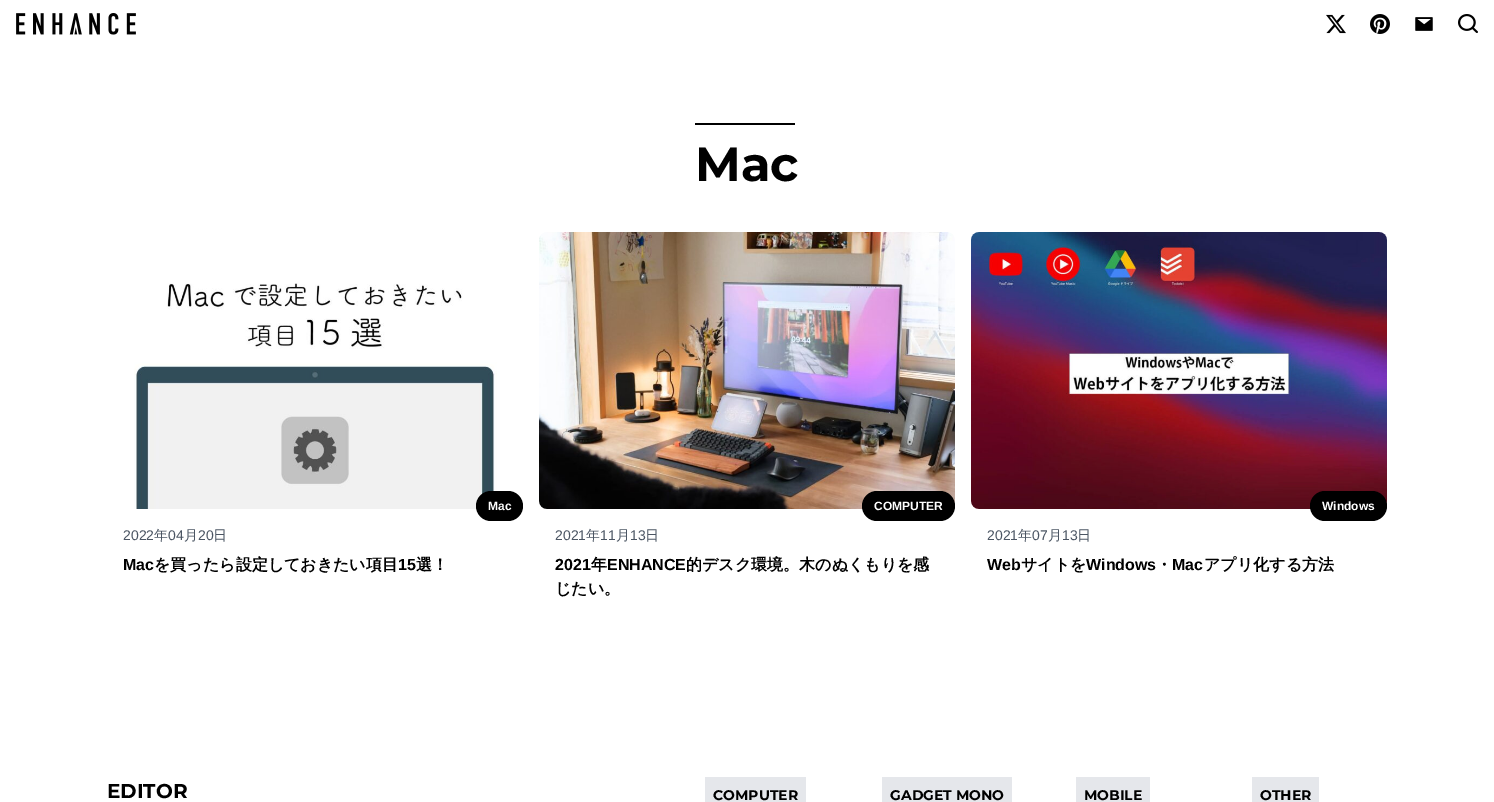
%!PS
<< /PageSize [1494 802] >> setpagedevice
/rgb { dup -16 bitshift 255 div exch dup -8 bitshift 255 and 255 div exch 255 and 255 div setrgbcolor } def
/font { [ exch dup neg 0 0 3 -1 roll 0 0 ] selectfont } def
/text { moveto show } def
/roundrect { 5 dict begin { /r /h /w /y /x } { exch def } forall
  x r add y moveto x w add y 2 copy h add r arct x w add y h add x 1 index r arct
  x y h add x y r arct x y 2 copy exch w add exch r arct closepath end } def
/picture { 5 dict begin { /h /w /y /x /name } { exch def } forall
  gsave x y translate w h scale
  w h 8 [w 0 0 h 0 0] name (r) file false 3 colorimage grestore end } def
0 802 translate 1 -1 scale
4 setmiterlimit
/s1 { /Montserrat-Bold 48 font 16#000000 rgb } def
/s2 { /LiberationSans-Bold 12 font 16#FFFFFF rgb } def
/s3 { /LiberationSans-Regular 14 font 16#4B5563 rgb } def
/s4 { /WenQuanYiZenHei-Medium 14 font 16#4B5563 rgb } def
/s5 { /LiberationSans-Bold 16 font 16#000000 rgb } def
/s6 { /WenQuanYiZenHei-Bold 16 font 16#000000 rgb } def
/s7 { /Montserrat-Bold 20 font 16#000000 rgb } def
/s8 { /Montserrat-Bold 14 font 16#000000 rgb } def
16#FFFFFF rgb
0 0 1494 802 rectfill
(pic1.raw) 16 13 120 22 picture
(pic2.raw) 1326 14 20 20 picture
(pic3.raw) 1370 14 20 20 picture
(pic4.raw) 1415 17 18 14 picture
(pic5.raw) 1458 14 20 19 picture
16#000000 rgb
695 123 100 2 rectfill
s1
(Mac) 695 181 text
(pic6.raw) 134 283 363 226 picture
476 491 47 30 15 roundrect fill
s2
(Mac) 488 510 text
s3
(2022) 123 540 text
s4
(年) 154 540 text
s3
(04) 168 540 text
s4
(月) 184 540 text
s3
(20) 198 540 text
s4
(日) 213 540 text
s5
(Mac) 123 570 text
s6
(を買ったら設定しておきたい項目) 154 570 text
s5
(15) 398 570 text
s6
(選！) 416 570 text
(pic7.raw) 539 232 416 277 picture
862 491 93 30 15 roundrect fill
s2
(COMPUTER) 874 510 text
s3
(2021) 555 540 text
s4
(年) 586 540 text
s3
(11) 600 540 text
s4
(月) 616 540 text
s3
(13) 630 540 text
s4
(日) 645 540 text
s5
(2021) 555 570 text
s6
(年) 591 570 text
s5
(ENHANCE) 607 570 text
s6
(的デスク環境。木のぬくもりを感) 686 570 text
(じたい。) 555 594 text
(pic8.raw) 971 232 416 277 picture
1310 491 77 30 15 roundrect fill
s2
(Windows) 1322 510 text
s3
(2021) 987 540 text
s4
(年) 1018 540 text
s3
(07) 1032 540 text
s4
(月) 1048 540 text
s3
(13) 1062 540 text
s4
(日) 1077 540 text
s5
(Web) 987 570 text
s6
(サイトを) 1021 570 text
s5
(Windows) 1086 570 text
s6
(・) 1156 570 text
s5
(Mac) 1172 570 text
s6
(アプリ化する方法) 1204 570 text
s7
(EDITOR) 107 798 text
16#E5E7EB rgb
705 777 101 25 rectfill
s8
(COMPUTER) 713 800 text
16#E5E7EB rgb
882 777 130 25 rectfill
s8
(GADGET MONO) 890 800 text
16#E5E7EB rgb
1076 777 74 25 rectfill
s8
(MOBILE) 1084 800 text
16#E5E7EB rgb
1252 777 67 25 rectfill
s8
(OTHER) 1260 800 text
showpage
